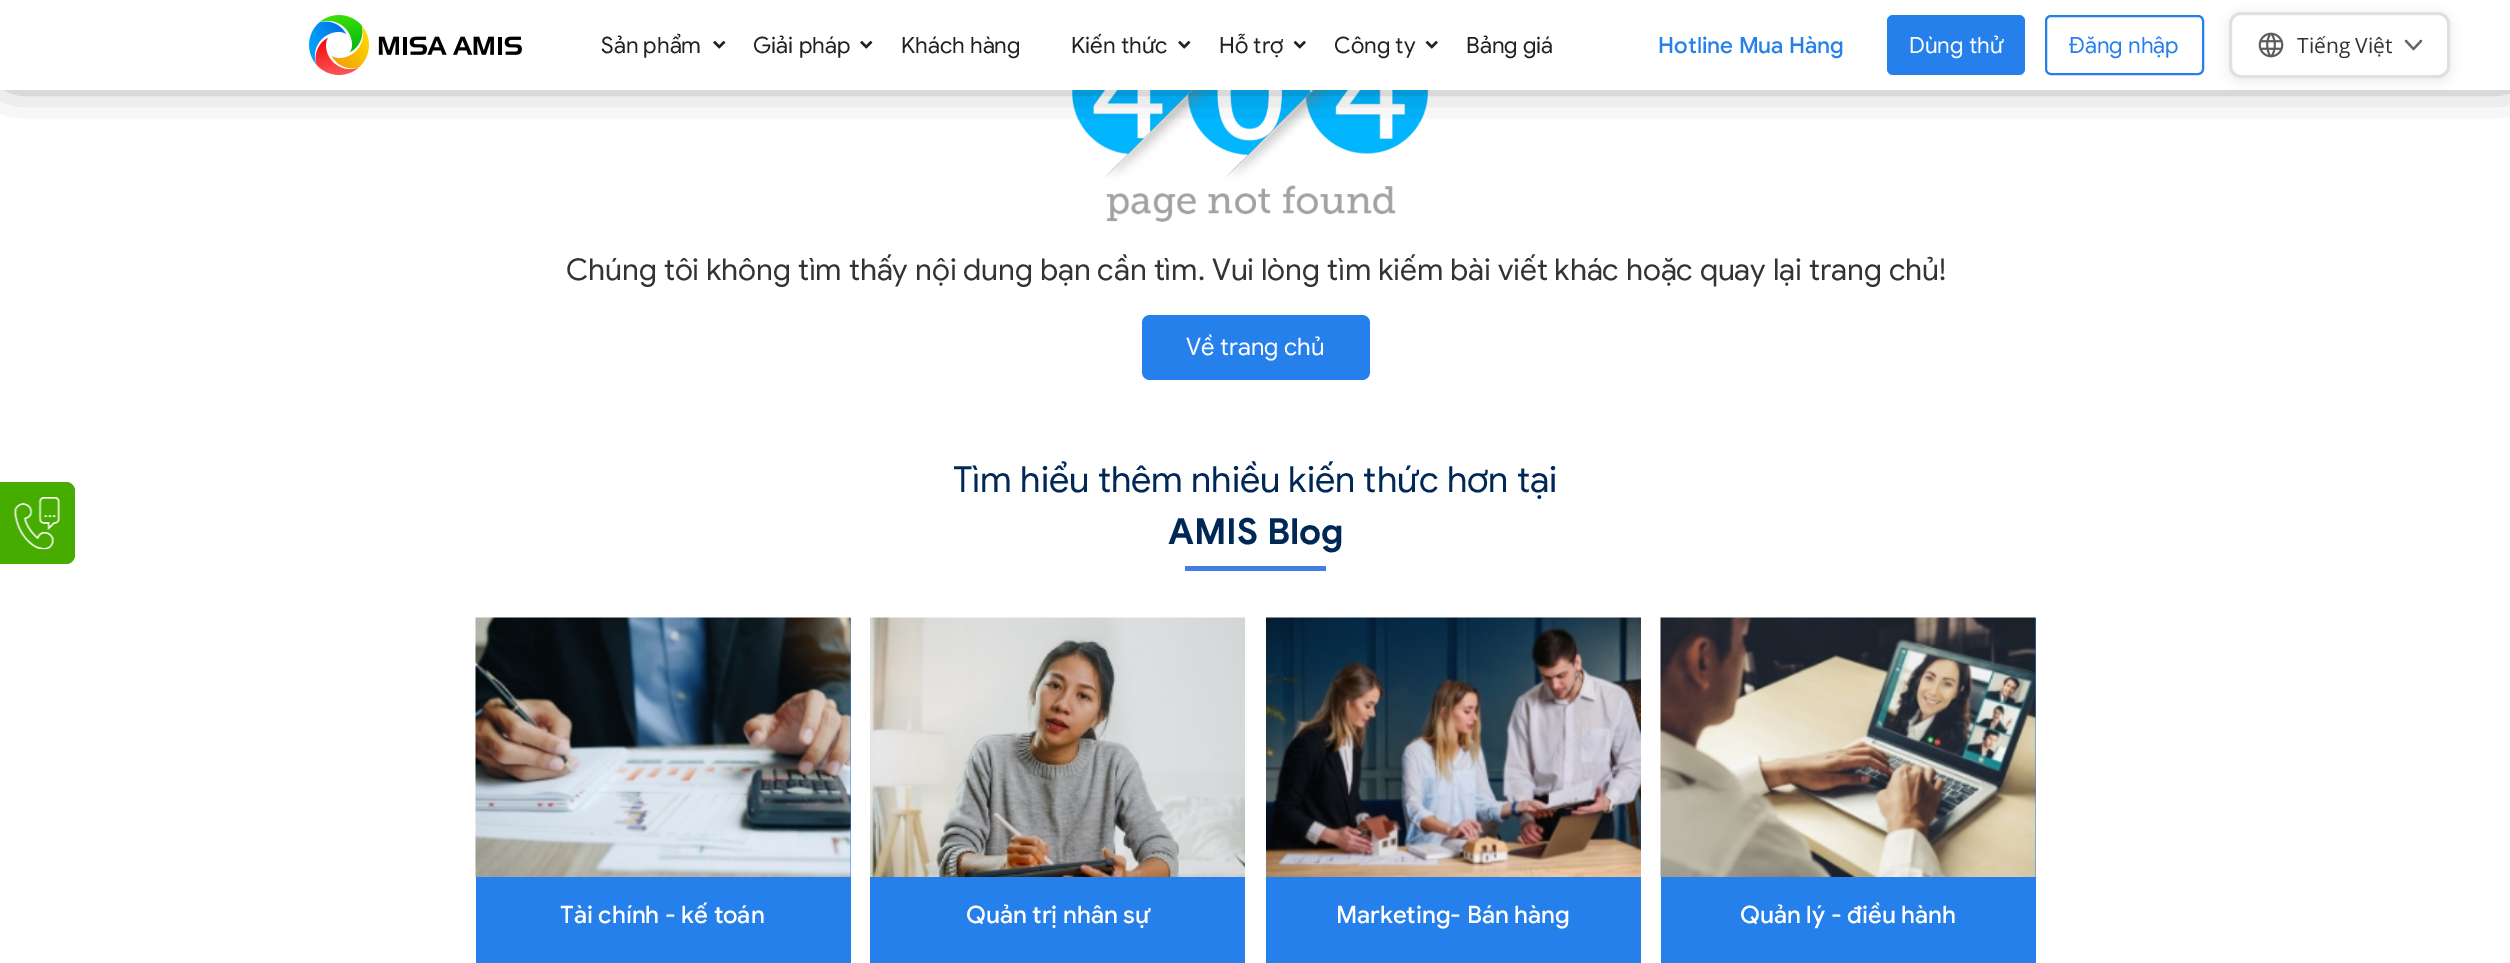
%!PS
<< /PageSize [2510 963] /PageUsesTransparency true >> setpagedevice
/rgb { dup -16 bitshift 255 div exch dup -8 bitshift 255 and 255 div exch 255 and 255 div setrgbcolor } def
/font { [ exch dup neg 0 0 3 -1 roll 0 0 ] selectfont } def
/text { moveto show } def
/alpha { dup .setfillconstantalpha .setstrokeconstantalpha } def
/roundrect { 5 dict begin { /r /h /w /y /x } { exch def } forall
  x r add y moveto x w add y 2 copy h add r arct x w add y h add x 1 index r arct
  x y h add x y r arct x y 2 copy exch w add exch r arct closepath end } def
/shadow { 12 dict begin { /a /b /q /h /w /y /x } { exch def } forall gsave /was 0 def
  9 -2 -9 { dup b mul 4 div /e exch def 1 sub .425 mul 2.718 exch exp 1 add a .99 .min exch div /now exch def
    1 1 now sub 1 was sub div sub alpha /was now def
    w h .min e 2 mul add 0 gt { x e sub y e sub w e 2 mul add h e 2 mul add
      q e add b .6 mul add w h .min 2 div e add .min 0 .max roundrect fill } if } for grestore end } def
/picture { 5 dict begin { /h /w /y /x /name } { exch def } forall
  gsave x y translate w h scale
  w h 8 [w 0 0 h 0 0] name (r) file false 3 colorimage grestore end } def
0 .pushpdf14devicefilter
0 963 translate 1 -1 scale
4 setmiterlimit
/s1 { /GoogleSans-Regular 22.5 font 16#212121 rgb } def
/s2 { /GoogleSans-Medium 22.5 font 16#2680EB rgb } def
/s3 { /GoogleSans-Regular 22.5 font 16#FFFFFF rgb } def
/s4 { /GoogleSans-Regular 22.5 font 16#2680EB rgb } def
/s5 { /OpenSans-Regular 21 font 16#333333 rgb } def
/s6 { /GoogleSans-Regular 30 font 16#333333 rgb } def
/s7 { /GoogleSans-Regular 24 font 16#FFFFFF rgb } def
/s8 { /GoogleSans-Regular 36 font 16#002856 rgb } def
/s9 { /GoogleSans-Bold 36 font 16#002856 rgb } def
/s10 { /GoogleSans-Medium 24 font 16#FFFFFF rgb } def
16#FFFFFF rgb
0 0 2510 963 rectfill
(pic6.raw) 1051 90 378 132 picture
16#000000 rgb
12 -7 2496 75 0 22.5 1 shadow
16#FFFFFF rgb
0 0 2510 90 rectfill
(pic1.raw) 309 15 213 60 picture
s1
(Sản phẩm) 601 53 text
(pic2.raw) 713 40 13 9 picture
(Giải pháp) 753 53 text
(pic2.raw) 860 40 13 9 picture
(Khách hàng) 901 53 text
(Kiến thức) 1071 53 text
(pic2.raw) 1178 40 13 9 picture
(Hỗ trợ) 1219 53 text
(pic3.raw) 1293 40 13 9 picture
(Công ty) 1334 53 text
(pic3.raw) 1425 40 13 9 picture
(Bảng giá) 1466 53 text
s2
(Hotline Mua Hàng) 1658 53 text
1887 15 138 60 6 roundrect fill
s3
(Dùng thử) 1909 53 text
16#2680EB rgb
2 setlinewidth
2046 16 157 58 5 roundrect stroke
(Đăng nhập) 2069 53 text
16#000000 rgb
2229 15 221 66 12 6 0.08 shadow
16#FFFFFF rgb
2230.5 13.5 218 63 10.5 roundrect gsave fill grestore
16#E0E0E0 rgb
3 setlinewidth
stroke
(pic4.raw) 2258 32 26 26 picture
s5
(Tiếng Việt) 2297 53 text
16#666666 rgb
2.2 setlinewidth
1 setlinecap
1 setlinejoin
2406 41 moveto 2413.5 49 lineto 2421 41 lineto stroke
16#47AC00 rgb
0 482 moveto 66 482 lineto 71 482 75 486 75 491 curveto 75 555 lineto 75 560 71 564 66 564 curveto 0 564 lineto closepath fill
(pic5.raw) 14 497 46 53 picture
s6
(Chúng tôi không tìm thấy nội dung bạn cần tìm. Vui lòng tìm kiếm bài viết khác hoặc quay lại trang chủ!) 566 280 text
16#2680EB rgb
1142 315 228 65 8 roundrect fill
s7
(Về trang chủ) 1186 355 text
s8
(Tìm hiểu thêm nhiều kiến thức hơn tại) 953 492 text
s9
(AMIS Blog) 1168 544 text
16#427EE4 rgb
1185 566 141 5 rectfill
16#2680EB rgb
476 618 375 345 rectfill
(pic7.raw) 475 617 376 260 picture
s10
(Tài chính - kế toán) 560 923 text
16#2680EB rgb
870 877 375 86 rectfill
(pic8.raw) 870 617 375 260 picture
s10
(Quản trị nhân sự) 966 923 text
16#2680EB rgb
1266 877 375 86 rectfill
(pic9.raw) 1266 617 375 260 picture
s10
(Marketing- Bán hàng) 1336 923 text
16#2680EB rgb
1661 618 375 345 rectfill
(pic10.raw) 1660 617 376 260 picture
s10
(Quản lý - điều hành) 1740 923 text
.poppdf14devicefilter showpage
